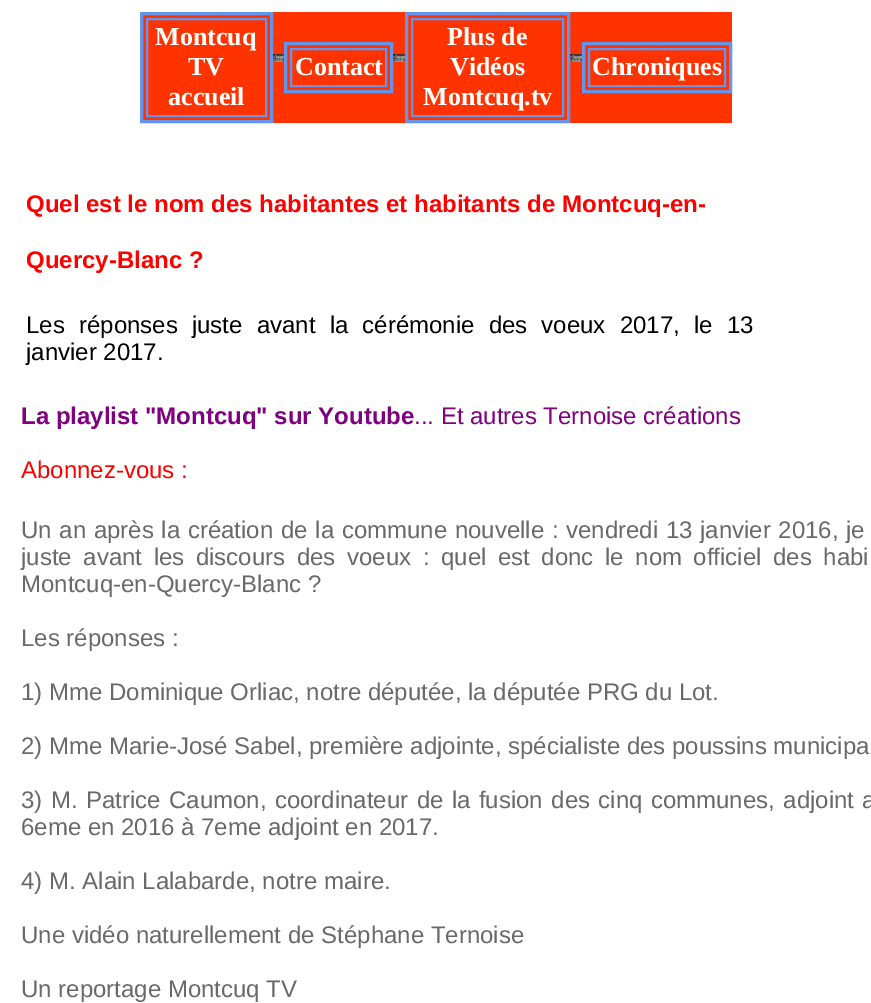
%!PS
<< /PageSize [871 1003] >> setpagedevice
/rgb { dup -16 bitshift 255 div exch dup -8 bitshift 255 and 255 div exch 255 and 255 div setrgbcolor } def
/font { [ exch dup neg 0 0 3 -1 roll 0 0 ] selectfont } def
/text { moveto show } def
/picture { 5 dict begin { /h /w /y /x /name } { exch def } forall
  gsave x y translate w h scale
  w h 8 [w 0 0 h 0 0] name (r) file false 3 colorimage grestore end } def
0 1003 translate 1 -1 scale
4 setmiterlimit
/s1 { /LiberationSerif-Bold 26 font 16#FFFFFF rgb } def
/s2 { /LiberationSans-Bold 24 font 16#FF0000 rgb } def
/s3 { /LiberationSans-Regular 24 font 16#000000 rgb } def
/s4 { /LiberationSans-Bold 24 font 16#800080 rgb } def
/s5 { /LiberationSans-Regular 24 font 16#800080 rgb } def
/s6 { /LiberationSans-Regular 24 font 16#FF0000 rgb } def
/s7 { /LiberationSans-Regular 24 font 16#696969 rgb } def
16#FFFFFF rgb
0 0 871 1003 rectfill
16#FF3300 rgb
143 12 589 111 rectfill
16#6495ED rgb
3 setlinewidth
141.5 13.5 130 108 rectstroke
2 setlinewidth
147 19 119 97 rectstroke
s1
(Montcuq) 155 45 text
(TV) 188 75 text
(accueil) 168 105 text
(pic1.raw) 273 54 11 8 picture
16#6495ED rgb
3 setlinewidth
285.5 43.5 106 48 rectstroke
2 setlinewidth
291 49 95 37 rectstroke
s1
(Contact) 295 75 text
(pic2.raw) 393 54 12 8 picture
16#6495ED rgb
3 setlinewidth
406.5 13.5 162 108 rectstroke
2 setlinewidth
412 19 151 97 rectstroke
s1
(Plus de) 447 45 text
(Vidéos) 450 75 text
(Montcuq.tv) 423 105 text
(pic2.raw) 570 54 12 8 picture
16#6495ED rgb
3 setlinewidth
583.5 43.5 147 48 rectstroke
2 setlinewidth
589 49 136 37 rectstroke
s1
(Chroniques) 592 75 text
s2
(Quel est le nom des habitantes et habitants de Montcuq-en-) 26 212 text
(Quercy-Blanc ?) 26 268 text
/LiberationSans-Regular 24 font
16#000000 rgb
26 333 moveto 7.5 0 32 (Les réponses juste avant la cérémonie des voeux 2017, le 13) widthshow
(janvier 2017.) 26 360 text
s4
(La playlist "Montcuq" sur Youtube) 21 424 text
s5
(... Et autres Ternoise créations) 414 424 text
s6
(Abonnez-vous :) 21 478 text
16#696969 rgb
21 538 moveto 1 0 32 (Un an après la création de la commune nouvelle : vendredi 13 janvier 2016, je) widthshow
21 565 moveto 4.9 0 32 (juste avant les discours des voeux : quel est donc le nom officiel des habi) widthshow
(Montcuq-en-Quercy-Blanc ?) 21 592 text
(Les réponses :) 21 646 text
(1\) Mme Dominique Orliac, notre députée, la députée PRG du Lot.) 21 700 text
(2\) Mme Marie-José Sabel, première adjointe, spécialiste des poussins municipa) 21 754 text
21 808 moveto 1.75 0 32 (3\) M. Patrice Caumon, coordinateur de la fusion des cinq communes, adjoint a) widthshow
(6eme en 2016 à 7eme adjoint en 2017.) 21 835 text
(4\) M. Alain Lalabarde, notre maire.) 21 889 text
(Une vidéo naturellement de Stéphane Ternoise) 21 943 text
(Un reportage Montcuq TV) 21 997 text
showpage
